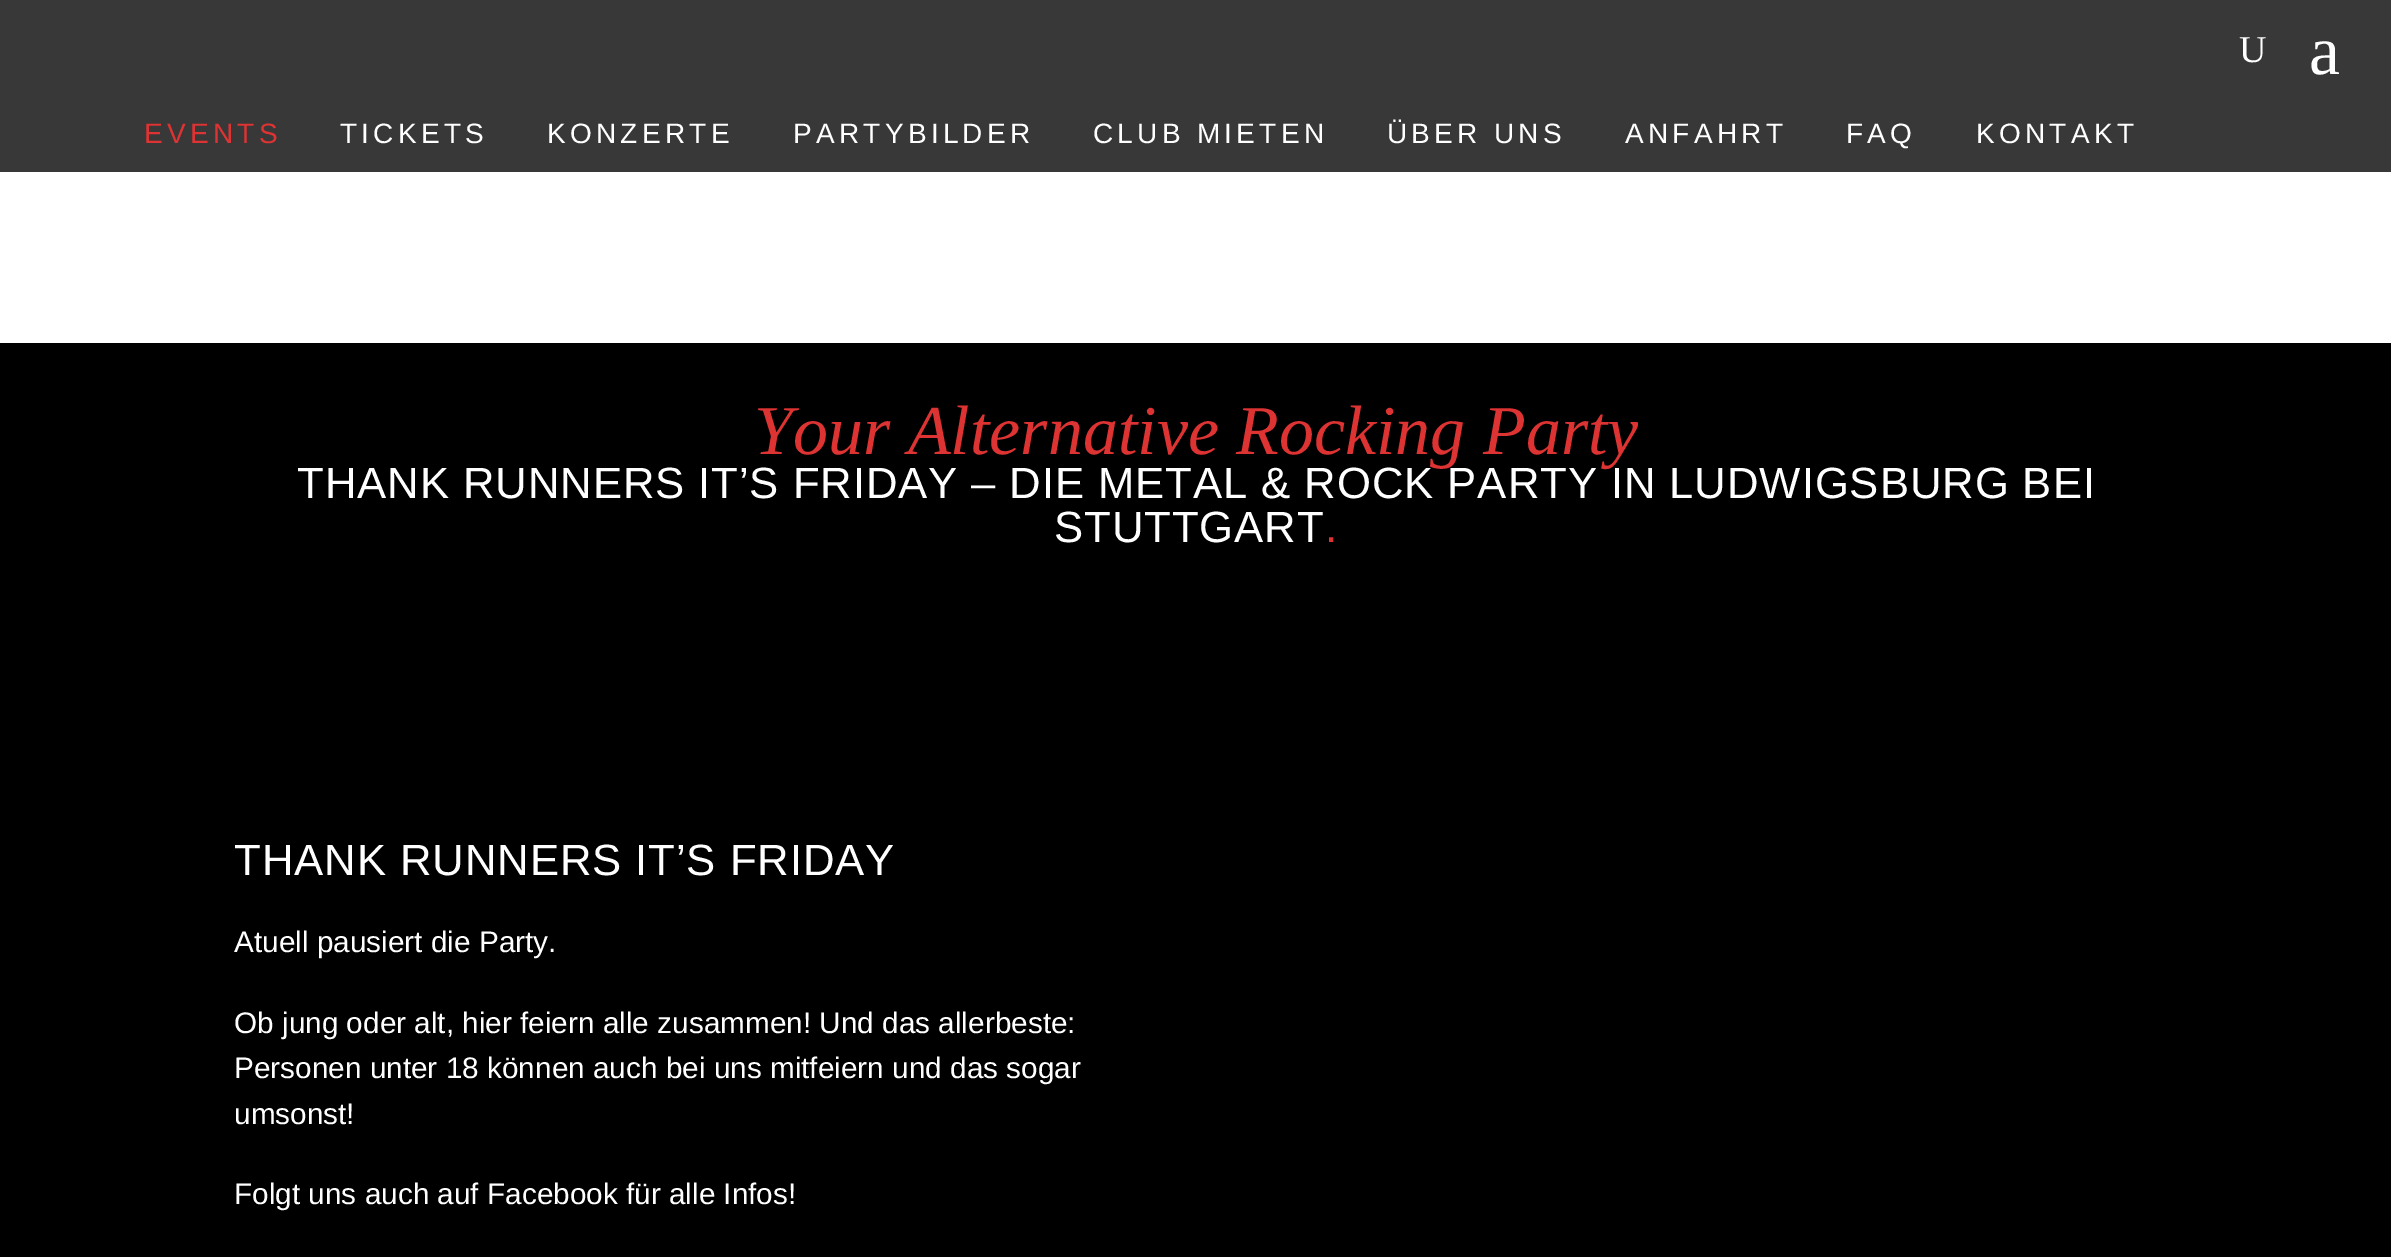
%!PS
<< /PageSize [2391 1257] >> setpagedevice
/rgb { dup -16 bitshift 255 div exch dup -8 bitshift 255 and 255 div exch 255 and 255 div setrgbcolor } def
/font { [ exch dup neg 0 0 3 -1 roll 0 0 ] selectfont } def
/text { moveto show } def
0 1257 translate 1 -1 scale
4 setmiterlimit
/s1 { /LiberationSerif-Regular 38 font 16#FFFFFF rgb } def
/s2 { /LiberationSerif-Regular 70 font 16#FFFFFF rgb } def
/s3 { /LiberationSerif-Italic 70 font 16#DD3333 rgb } def
/s4 { /LiberationSans-Regular 29.75 font 16#FFFFFF rgb } def
16#FFFFFF rgb
0 0 2391 1257 rectfill
16#383838 rgb
0 0 2391 172 rectfill
s1
(U) 2239 62 text
s2
(a) 2309 74 text
/LiberationSans-Regular 28 font
16#DD3333 rgb
144 143 moveto 4.25 0 (EVENTS) ashow
16#FFFFFF rgb
340 143 moveto 4.25 0 (TICKETS) ashow
547 143 moveto 4.25 0 (KONZERTE) ashow
793 143 moveto 4.25 0 (PARTYBILDER) ashow
1093 143 moveto 4.25 0 (CLUB MIETEN) ashow
1387 143 moveto 4.25 0 (ÜBER UNS) ashow
1625 143 moveto 4.25 0 (ANFAHRT) ashow
1846 143 moveto 4.25 0 (FAQ) ashow
1976 143 moveto 4.25 0 (KONTAKT) ashow
16#000000 rgb
0 343 2391 914 rectfill
s3
(Your Alternative Rocking Party) 754 454 text
/LiberationSans-Regular 43.75 font
16#FFFFFF rgb
297 498 moveto 0.88 0 (THANK RUNNERS IT’S FRIDAY – DIE METAL & ROCK PARTY IN LUDWIGSBURG BEI) ashow
1054 542 moveto 0.88 0 (STUTTGART) ashow
16#DD3333 rgb
1325 542 moveto 0.88 0 (.) ashow
16#FFFFFF rgb
234 875 moveto 0.88 0 (THANK RUNNERS IT’S FRIDAY) ashow
s4
(Atuell pausiert die Party.) 234 952 text
(Ob jung oder alt, hier feiern alle zusammen! Und das allerbeste:) 234 1033 text
(Personen unter 18 können auch bei uns mitfeiern und das sogar) 234 1078 text
(umsonst!) 234 1124 text
(Folgt uns auch auf Facebook für alle Infos!) 234 1204 text
showpage
